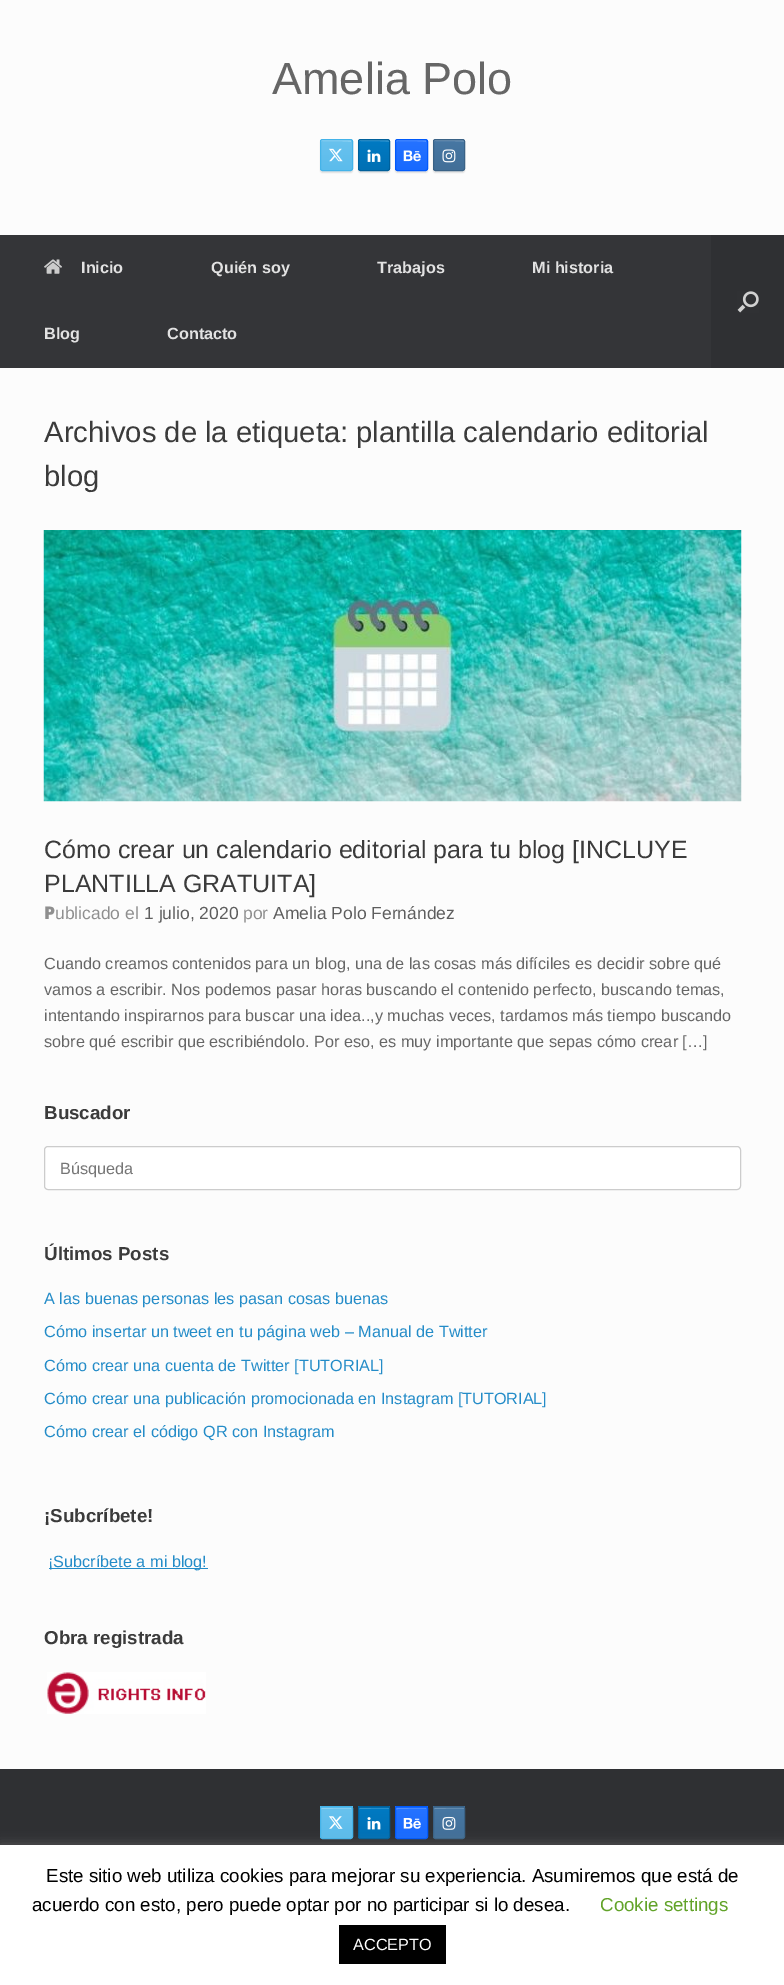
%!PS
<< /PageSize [784 1985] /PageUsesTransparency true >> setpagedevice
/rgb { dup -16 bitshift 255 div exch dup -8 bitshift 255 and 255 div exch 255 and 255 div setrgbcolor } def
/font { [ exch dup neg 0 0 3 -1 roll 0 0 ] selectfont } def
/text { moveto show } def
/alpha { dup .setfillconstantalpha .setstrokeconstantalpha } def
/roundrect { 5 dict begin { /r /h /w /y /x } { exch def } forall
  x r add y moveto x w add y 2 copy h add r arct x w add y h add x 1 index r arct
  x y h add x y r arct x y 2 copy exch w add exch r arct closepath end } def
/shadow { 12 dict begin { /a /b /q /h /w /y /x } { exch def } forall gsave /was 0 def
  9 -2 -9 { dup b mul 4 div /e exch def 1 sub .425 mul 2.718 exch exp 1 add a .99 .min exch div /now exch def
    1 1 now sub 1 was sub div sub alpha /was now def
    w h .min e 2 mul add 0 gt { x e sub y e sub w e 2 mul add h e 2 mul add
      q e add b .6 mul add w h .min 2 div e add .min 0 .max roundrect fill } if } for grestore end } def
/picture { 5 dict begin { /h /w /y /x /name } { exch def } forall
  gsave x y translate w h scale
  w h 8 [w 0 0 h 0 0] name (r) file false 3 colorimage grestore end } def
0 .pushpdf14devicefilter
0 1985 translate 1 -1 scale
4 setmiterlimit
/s1 { /LiberationSans-Regular 45 font 16#666666 rgb } def
/s2 { /LiberationSans-Bold 16.25 font 16#E2E2E2 rgb } def
/s3 { /LiberationSans-Regular 29.25 font 16#3B3B3B rgb } def
/s4 { /LiberationSans-Regular 25 font 16#3B3B3B rgb } def
/s5 { /NotoSans-Black 17.5 font 16#8F8F8F rgb } def
/s6 { /LiberationSans-Regular 17.5 font 16#8F8F8F rgb } def
/s7 { /LiberationSans-Regular 17.5 font 16#5E5E5E rgb } def
/s8 { /LiberationSans-Regular 16.25 font 16#666666 rgb } def
/s9 { /LiberationSans-Bold 18.75 font 16#3B3B3B rgb } def
/s10 { /LiberationSans-Regular 16.25 font 16#757575 rgb } def
/s11 { /LiberationSans-Regular 16.25 font 16#248CC8 rgb } def
/s12 { /LiberationSans-Regular 18.75 font 16#000000 rgb } def
/s13 { /LiberationSans-Regular 18.75 font 16#62A329 rgb } def
/s14 { /LiberationSans-Regular 16.25 font 16#FFFFFF rgb } def
16#2F3033 rgb
0 0 784 1985 rectfill
16#FCFCFC rgb
0 0 784 235 rectfill
s1
(Amelia Polo) 272 94 text
16#000000 rgb
320 140 33 33 2.5 0.5 0.1 shadow
gsave
320 139 33 32 2.5 roundrect clip newpath
gsave 320 140 moveto 353 140 lineto 353 170 lineto 320 170 lineto closepath clip newpath
<< /ShadingType 2 /ColorSpace /DeviceRGB /Coords [321 170 321 140] /Extend [true true] /Function << /FunctionType 2 /Domain [0 1] /C0 [0.357 0.737 0.925] /C1 [0.412 0.761 0.933] /N 1 >> >> shfill grestore
grestore
16#8ED1F2 rgb
322 141 moveto 326 141 350 141 351 142 curveto 351 138.5 348.5 140 345.5 140 curveto 326.5 140 lineto 324 140 321 138.5 321 141.5 curveto closepath fill
16#44B3E9 rgb
320.5 139.5 32 31 2 roundrect stroke
(pic1.raw) 329 148 14 14 picture
16#000000 rgb
358 140 32 33 2.5 0.5 0.1 shadow
gsave
358 139 32 32 2.5 roundrect clip newpath
gsave 358 140 moveto 390 140 lineto 390 170 lineto 358 170 lineto closepath clip newpath
<< /ShadingType 2 /ColorSpace /DeviceRGB /Coords [359 170 359 140] /Extend [true true] /Function << /FunctionType 2 /Domain [0 1] /C0 [0 0.439 0.706] /C1 [0 0.478 0.765] /N 1 >> >> shfill grestore
grestore
16#3395CF rgb
360 141 moveto 363 141 388 141 389 142 curveto 389 138.5 386.5 140 383.5 140 curveto 364.5 140 lineto 362 140 359 138.5 359 141.5 curveto closepath fill
16#00609B rgb
358.5 139.5 31 31 2 roundrect stroke
(pic2.raw) 367 149 14 13 picture
16#000000 rgb
395 140 33 33 2.5 0.5 0.1 shadow
gsave
395 139 33 32 2.5 roundrect clip newpath
gsave 395 140 moveto 428 140 lineto 428 170 lineto 395 170 lineto closepath clip newpath
<< /ShadingType 2 /ColorSpace /DeviceRGB /Coords [396 170 396 140] /Extend [true true] /Function << /FunctionType 2 /Domain [0 1] /C0 [0.09 0.412 1] /C1 [0.149 0.451 1] /N 1 >> >> shfill grestore
grestore
16#518FFF rgb
398 141 moveto 401 141 425 141 426 142 curveto 426 138.5 423.5 140 420.5 140 curveto 401.5 140 lineto 397 140 396 138.5 396 142.5 curveto 396 141.5 397 141 398 141 curveto closepath fill
16#0059FC rgb
395.5 139.5 32 31 2 roundrect stroke
(pic3.raw) 403 150 18 12 picture
16#000000 rgb
433 140 32 33 2.5 0.5 0.1 shadow
gsave
433 139 32 32 2.5 roundrect clip newpath
gsave 433 140 moveto 465 140 lineto 465 170 lineto 433 170 lineto closepath clip newpath
<< /ShadingType 2 /ColorSpace /DeviceRGB /Coords [434 170 434 140] /Extend [true true] /Function << /FunctionType 2 /Domain [0 1] /C0 [0.259 0.435 0.596] /C1 [0.278 0.467 0.639] /N 1 >> >> shfill grestore
grestore
16#6C92B5 rgb
435 141 moveto 438 141 463 141 464 142 curveto 464 138.5 461.5 140 458.5 140 curveto 439.5 140 lineto 437 140 434 138.5 434 141.5 curveto closepath fill
16#3A6286 rgb
433.5 139.5 31 31 2 roundrect stroke
(pic4.raw) 442 149 14 14 picture
16#343538 rgb
0 235 711 133 rectfill
(pic5.raw) 44 259 18 15 picture
s2
(Inicio) 81 273 text
(Quién soy) 211 273 text
(Trabajos) 377 273 text
(Mi historia) 532 273 text
(Blog) 44 339 text
(Contacto) 167 339 text
(pic6.raw) 737 291 22 22 picture
16#FCFCFC rgb
0 368 784 1401 rectfill
s3
(Archivos de la etiqueta: plantilla calendario editorial) 44 442 text
(blog) 44 486 text
(pic7.raw) 43 530 699 272 picture
s4
(Cómo crear un calendario editorial para tu blog [INCLUYE) 44 858 text
(PLANTILLA GRATUITA]) 44 892 text
s5
(P) 44 919 text
s6
(ublicado el) 55 919 text
s7
(1 julio, 2020) 144 919 text
s6
(por) 243 919 text
s7
(Amelia Polo Fernández) 273 919 text
s8
(Cuando creamos contenidos para un blog, una de las cosas más difíciles es decidir sobre qué) 44 969 text
(vamos a escribir. Nos podemos pasar horas buscando el contenido perfecto, buscando temas,) 44 995 text
(intentando inspirarnos para buscar una idea..,y muchas veces, tardamos más tiempo buscando) 44 1021 text
(sobre qué escribir que escribiéndolo. Por eso, es muy importante que sepas cómo crear […]) 44 1047 text
s9
(Buscador) 44 1119 text
16#FFFFFF rgb
44.5 1146.5 696 43 3.5 roundrect gsave fill grestore
16#CCCCCC rgb
stroke
s10
(Búsqueda) 60 1174 text
s9
(Últimos Posts) 44 1260 text
s11
(A las buenas personas les pasan cosas buenas) 44 1304 text
(Cómo insertar un tweet en tu página web – Manual de Twitter) 44 1337 text
(Cómo crear una cuenta de Twitter [TUTORIAL]) 44 1371 text
(Cómo crear una publicación promocionada en Instagram [TUTORIAL]) 44 1404 text
(Cómo crear el código QR con Instagram) 44 1437 text
s9
(¡Subcríbete!) 44 1522 text
16#248CC8 rgb
49 1568 159 1 rectfill
s11
(¡Subcríbete a mi blog!) 48 1567 text
s9
(Obra registrada) 44 1644 text
(pic8.raw) 47 1672 159 42 picture
gsave
320 1806 33 33 2.5 roundrect clip newpath
gsave 320 1806 moveto 353 1806 lineto 353 1808 lineto 320 1808 lineto closepath clip newpath
<< /ShadingType 2 /ColorSpace /DeviceRGB /Coords [321 1808 321 1778] /Extend [true true] /Function << /FunctionType 2 /Domain [0 1] /C0 [0.357 0.737 0.925] /C1 [0.412 0.761 0.933] /N 1 >> >> shfill grestore
grestore
gsave 320 1808 moveto 353 1808 lineto 353 1838 lineto 320 1838 lineto closepath clip newpath
<< /ShadingType 2 /ColorSpace /DeviceRGB /Coords [321 1838 321 1808] /Extend [true true] /Function << /FunctionType 2 /Domain [0 1] /C0 [0.357 0.737 0.925] /C1 [0.412 0.761 0.933] /N 1 >> >> shfill grestore
16#8FD1F2 rgb
322 1809 moveto 327 1809 350 1808 351 1809 curveto 351 1808.5 350.5 1808 350 1808 curveto 322 1808 lineto 321.5 1808 321 1808.5 321 1809 curveto 321 1809.5 lineto closepath fill
16#44B3E9 rgb
320.5 1806.5 32 32 2 roundrect stroke
(pic9.raw) 329 1816 14 13 picture
gsave
358 1806 32 33 2.5 roundrect clip newpath
gsave 358 1806 moveto 390 1806 lineto 390 1808 lineto 358 1808 lineto closepath clip newpath
<< /ShadingType 2 /ColorSpace /DeviceRGB /Coords [359 1808 359 1778] /Extend [true true] /Function << /FunctionType 2 /Domain [0 1] /C0 [0 0.439 0.706] /C1 [0 0.478 0.765] /N 1 >> >> shfill grestore
grestore
gsave 358 1808 moveto 390 1808 lineto 390 1838 lineto 358 1838 lineto closepath clip newpath
<< /ShadingType 2 /ColorSpace /DeviceRGB /Coords [359 1838 359 1808] /Extend [true true] /Function << /FunctionType 2 /Domain [0 1] /C0 [0 0.439 0.706] /C1 [0 0.478 0.765] /N 1 >> >> shfill grestore
16#3395CF rgb
360 1809 moveto 365 1809 388 1808 389 1809 curveto 389 1808.5 388.5 1808 388 1808 curveto 360 1808 lineto 359.5 1808 359 1808.5 359 1809 curveto 359 1809.5 lineto closepath fill
16#00609B rgb
358.5 1806.5 31 32 2 roundrect stroke
(pic10.raw) 367 1817 14 13 picture
gsave
395 1806 33 33 2.5 roundrect clip newpath
gsave 395 1806 moveto 428 1806 lineto 428 1808 lineto 395 1808 lineto closepath clip newpath
<< /ShadingType 2 /ColorSpace /DeviceRGB /Coords [396 1808 396 1778] /Extend [true true] /Function << /FunctionType 2 /Domain [0 1] /C0 [0.09 0.412 1] /C1 [0.149 0.451 1] /N 1 >> >> shfill grestore
grestore
gsave 395 1808 moveto 428 1808 lineto 428 1838 lineto 395 1838 lineto closepath clip newpath
<< /ShadingType 2 /ColorSpace /DeviceRGB /Coords [396 1838 396 1808] /Extend [true true] /Function << /FunctionType 2 /Domain [0 1] /C0 [0.09 0.412 1] /C1 [0.149 0.451 1] /N 1 >> >> shfill grestore
16#518FFF rgb
398 1809 moveto 403 1809 425 1808 426 1809 curveto 426 1808.5 425.5 1808 425 1808 curveto 397 1808 lineto 396.5 1808 396 1808.5 396 1809 curveto 396 1810 lineto 396 1809.5 397 1809 398 1809 curveto closepath fill
16#0059FC rgb
395.5 1806.5 32 32 2 roundrect stroke
(pic11.raw) 403 1818 18 11 picture
gsave
433 1806 32 33 2.5 roundrect clip newpath
gsave 433 1806 moveto 465 1806 lineto 465 1808 lineto 433 1808 lineto closepath clip newpath
<< /ShadingType 2 /ColorSpace /DeviceRGB /Coords [434 1808 434 1778] /Extend [true true] /Function << /FunctionType 2 /Domain [0 1] /C0 [0.259 0.435 0.596] /C1 [0.278 0.467 0.639] /N 1 >> >> shfill grestore
grestore
gsave 433 1808 moveto 465 1808 lineto 465 1838 lineto 433 1838 lineto closepath clip newpath
<< /ShadingType 2 /ColorSpace /DeviceRGB /Coords [434 1838 434 1808] /Extend [true true] /Function << /FunctionType 2 /Domain [0 1] /C0 [0.259 0.435 0.596] /C1 [0.278 0.467 0.639] /N 1 >> >> shfill grestore
16#6C92B5 rgb
435 1809 moveto 440 1809 463 1808 464 1809 curveto 464 1808.5 463.5 1808 463 1808 curveto 435 1808 lineto 434.5 1808 434 1808.5 434 1809 curveto 434 1809.5 lineto closepath fill
16#3A6286 rgb
433.5 1806.5 31 32 2 roundrect stroke
(pic12.raw) 442 1816 14 14 picture
16#ACABAB rgb
0 1844 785 140 0 6 0.3 shadow
16#FFFFFF rgb
0 1845 784 140 rectfill
s12
(Este sitio web utiliza cookies para mejorar su experiencia. Asumiremos que está de) 46 1882 text
(acuerdo con esto, pero puede optar por no participar si lo desea.) 32 1911 text
s13
(Cookie settings) 600 1911 text
16#000000 rgb
339 1925 107 39 rectfill
s14
(ACCEPTO) 353 1950 text
.poppdf14devicefilter showpage
